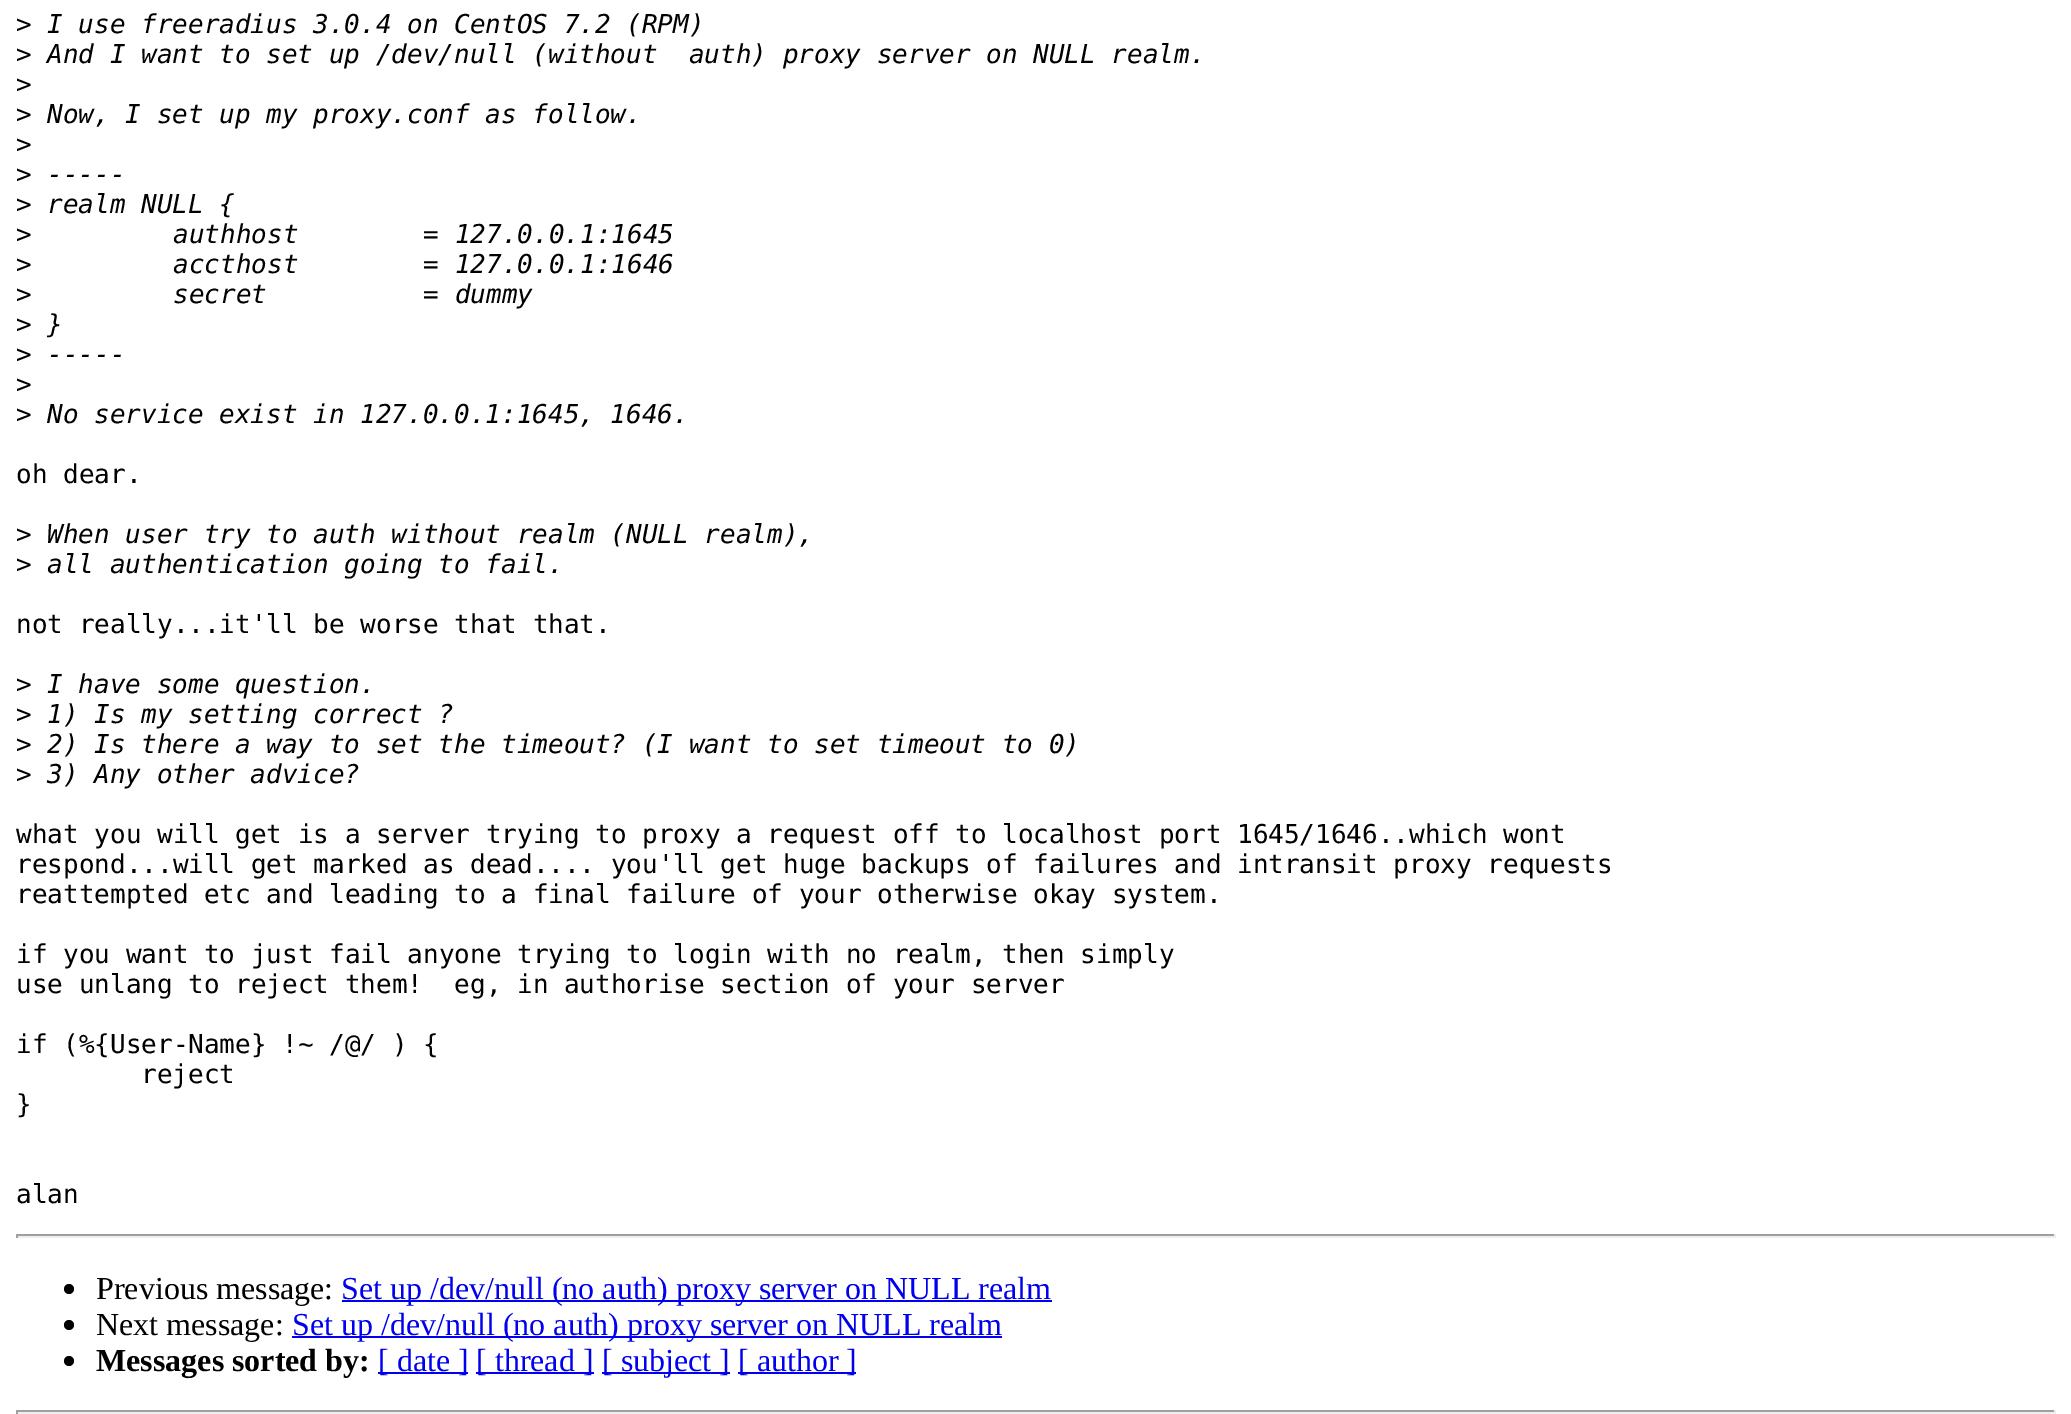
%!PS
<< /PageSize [2071 1414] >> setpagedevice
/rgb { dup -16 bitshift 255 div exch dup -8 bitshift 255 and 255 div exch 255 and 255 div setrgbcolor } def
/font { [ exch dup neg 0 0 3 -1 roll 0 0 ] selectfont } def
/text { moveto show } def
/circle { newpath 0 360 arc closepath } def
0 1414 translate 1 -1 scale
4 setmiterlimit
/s1 { /DejaVuSansMono-Regular 26 font 16#000000 rgb } def
/s2 { /DejaVuSansMono-Italic 26 font 16#000000 rgb } def
/s3 { /LiberationSerif-Regular 32 font 16#000000 rgb } def
/s4 { /LiberationSerif-Regular 32 font 16#0000EE rgb } def
/s5 { /LiberationSerif-Bold 32 font 16#000000 rgb } def
16#FFFFFF rgb
0 0 2071 1414 rectfill
s1
(>) 16 33 text
s2
(I use freeradius 3.0.4 on CentOS 7.2 \(RPM\)) 47 33 text
s1
(>) 16 63 text
s2
(And I want to set up /dev/null \(without  auth\) proxy server on NULL realm.) 47 63 text
s1
(>) 16 93 text
(>) 16 123 text
s2
(Now, I set up my proxy.conf as follow.) 47 123 text
s1
(>) 16 153 text
(>) 16 183 text
s2
(-----) 47 183 text
s1
(>) 16 213 text
s2
(realm NULL {) 47 213 text
s1
(>) 16 243 text
s2
(authhost        = 127.0.0.1:1645) 173 243 text
s1
(>) 16 273 text
s2
(accthost        = 127.0.0.1:1646) 173 273 text
s1
(>) 16 303 text
s2
(secret          = dummy) 173 303 text
s1
(>) 16 333 text
s2
(}) 47 333 text
s1
(>) 16 363 text
s2
(-----) 47 363 text
s1
(>) 16 393 text
(>) 16 423 text
s2
(No service exist in 127.0.0.1:1645, 1646.) 47 423 text
s1
(oh dear.) 16 483 text
(>) 16 543 text
s2
(When user try to auth without realm \(NULL realm\),) 47 543 text
s1
(>) 16 573 text
s2
(all authentication going to fail.) 47 573 text
s1
(not really...it'll be worse that that.) 16 633 text
(>) 16 693 text
s2
(I have some question.) 47 693 text
s1
(>) 16 723 text
s2
(1\) Is my setting correct ?) 47 723 text
s1
(>) 16 753 text
s2
(2\) Is there a way to set the timeout? \(I want to set timeout to 0\)) 47 753 text
s1
(>) 16 783 text
s2
(3\) Any other advice?) 47 783 text
s1
(what you will get is a server trying to proxy a request off to localhost port 1645/1646..which wont) 16 843 text
(respond...will get marked as dead.... you'll get huge backups of failures and intransit proxy requests) 16 873 text
(reattempted etc and leading to a final failure of your otherwise okay system.) 16 903 text
(if you want to just fail anyone trying to login with no realm, then simply) 16 963 text
(use unlang to reject them!  eg, in authorise section of your server) 16 993 text
(if \(%{User-Name} !~ /@/ \) {) 16 1053 text
(reject) 141 1083 text
(}) 16 1113 text
(alan) 16 1203 text
16#9F9F9F rgb
16 1234 2040 2 rectfill
16#EEEEEE rgb
2054 1234 2 4 rectfill
16 1236 2040 2 rectfill
16#9F9F9F rgb
16 1234 2 4 rectfill
16#000000 rgb
69 1289 5 circle fill
s3
(Previous message:) 96 1299 text
16#0000EE rgb
342 1300 710 2 rectfill
(Set up /dev/null \(no auth\) proxy server on NULL realm) 341 1299 text
16#000000 rgb
69 1325 5 circle fill
(Next message:) 96 1335 text
16#0000EE rgb
292 1336 710 2 rectfill
(Set up /dev/null \(no auth\) proxy server on NULL realm) 292 1335 text
16#000000 rgb
69 1361 5 circle fill
s5
(Messages sorted by:) 96 1371 text
16#0000EE rgb
378 1372 90 2 rectfill
s4
([ date ]) 378 1371 text
476 1372 118 2 rectfill
([ thread ]) 476 1371 text
602 1372 128 2 rectfill
([ subject ]) 602 1371 text
738 1372 118 2 rectfill
([ author ]) 738 1371 text
16#9F9F9F rgb
16 1410 2040 2 rectfill
16#EEEEEE rgb
2054 1410 2 4 rectfill
16 1412 2040 2 rectfill
16#9F9F9F rgb
16 1410 2 4 rectfill
showpage
